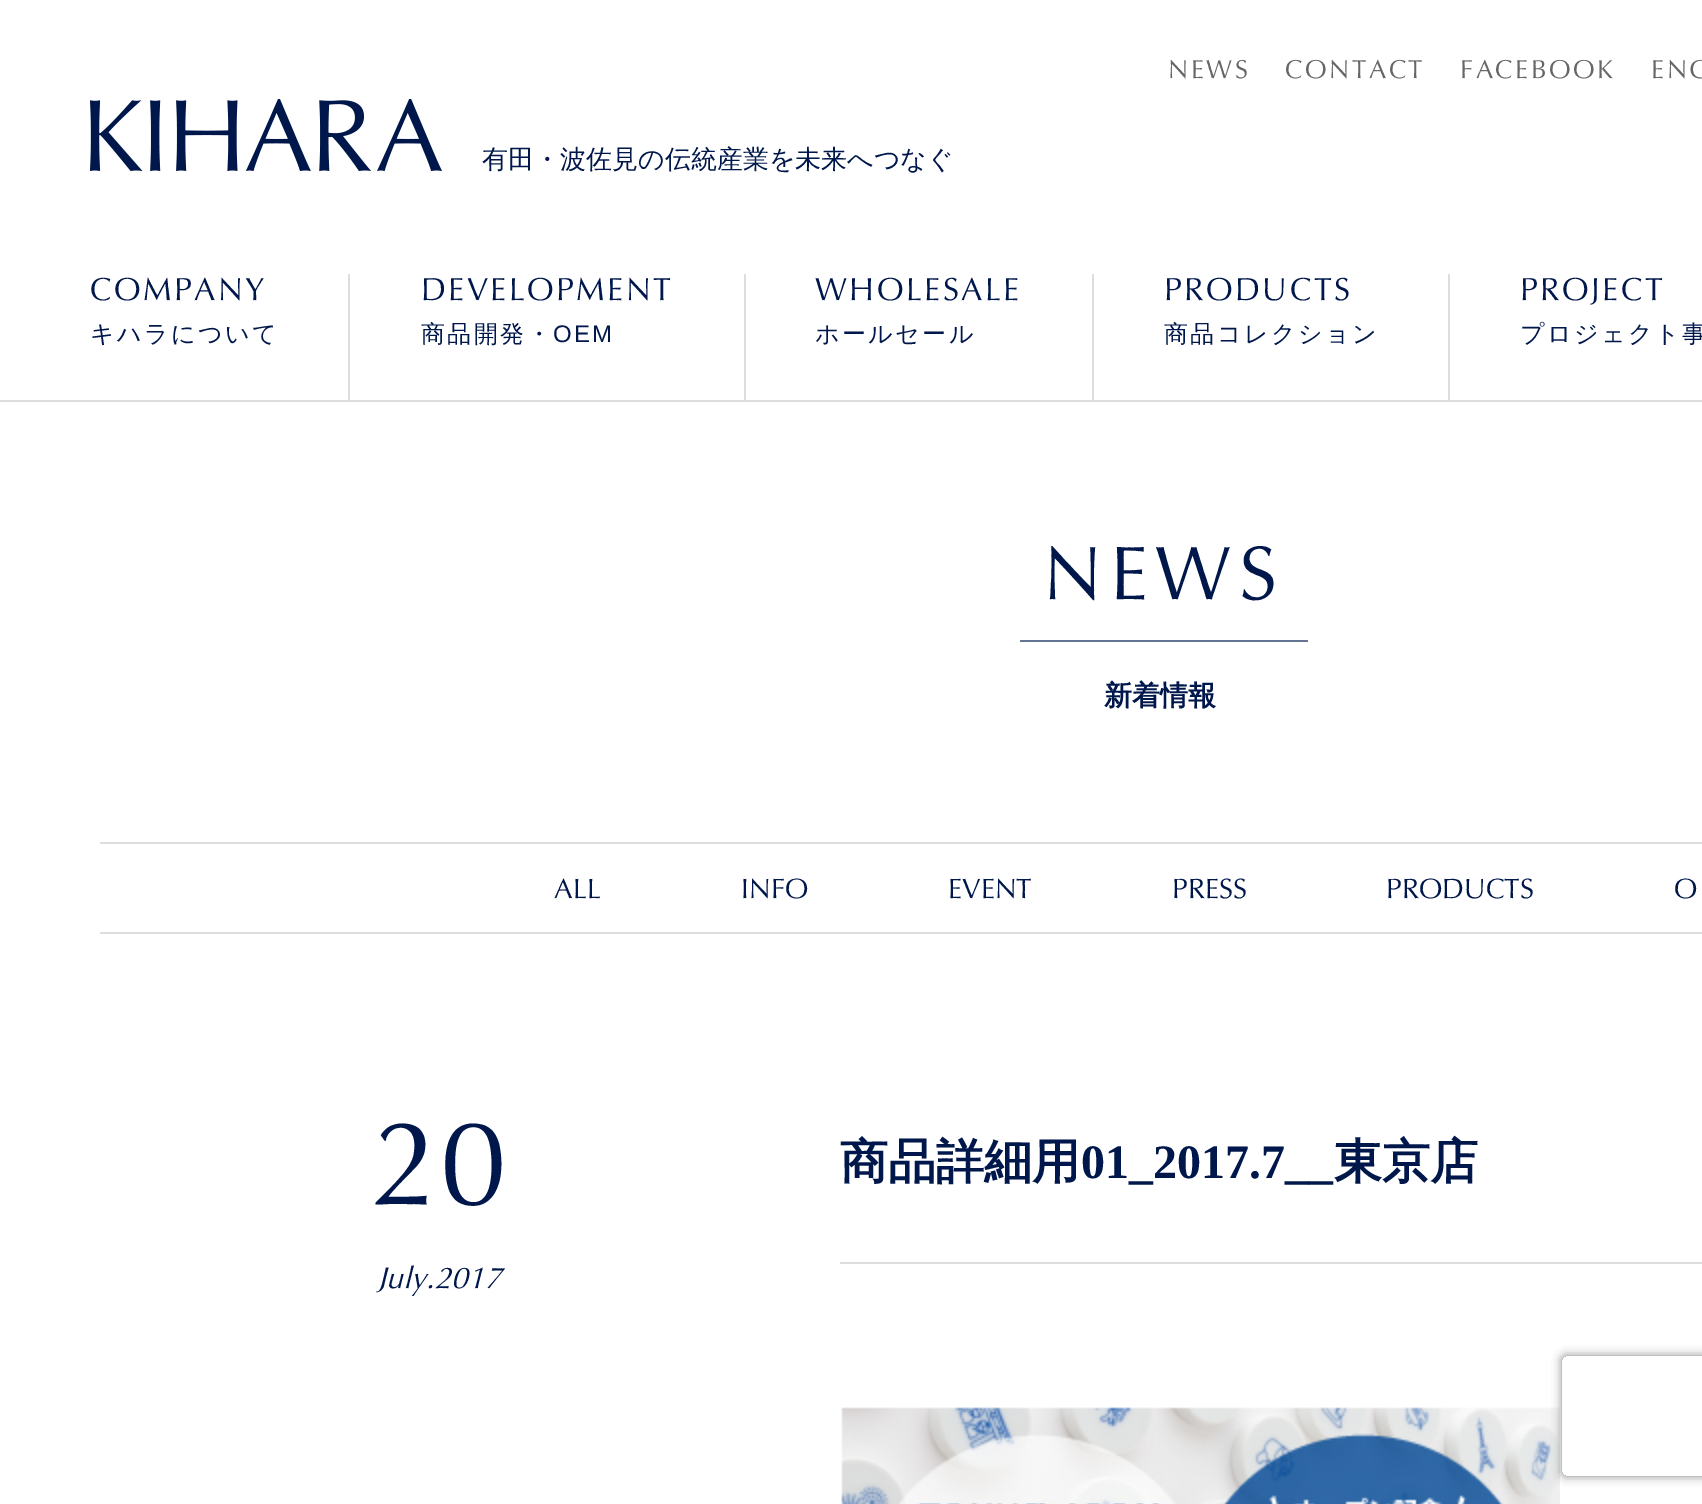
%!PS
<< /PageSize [1702 1504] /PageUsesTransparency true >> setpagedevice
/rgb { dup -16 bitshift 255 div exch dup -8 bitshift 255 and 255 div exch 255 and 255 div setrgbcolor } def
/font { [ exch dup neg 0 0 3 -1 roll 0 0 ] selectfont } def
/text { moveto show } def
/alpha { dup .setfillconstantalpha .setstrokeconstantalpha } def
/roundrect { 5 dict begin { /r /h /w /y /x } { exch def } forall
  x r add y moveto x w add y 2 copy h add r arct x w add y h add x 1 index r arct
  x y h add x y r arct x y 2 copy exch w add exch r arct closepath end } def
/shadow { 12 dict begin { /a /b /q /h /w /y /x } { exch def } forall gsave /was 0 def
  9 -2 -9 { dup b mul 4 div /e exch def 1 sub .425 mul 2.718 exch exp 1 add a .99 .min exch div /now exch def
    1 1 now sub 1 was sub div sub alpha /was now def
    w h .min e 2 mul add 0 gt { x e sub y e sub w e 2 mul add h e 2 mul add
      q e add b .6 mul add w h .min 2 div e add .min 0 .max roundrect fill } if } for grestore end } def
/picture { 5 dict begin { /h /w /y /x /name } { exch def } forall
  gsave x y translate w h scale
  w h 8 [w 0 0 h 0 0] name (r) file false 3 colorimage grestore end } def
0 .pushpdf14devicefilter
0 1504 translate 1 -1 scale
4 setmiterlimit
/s1 { /WenQuanYiZenHei-Medium 26 font 16#00174B rgb } def
/s2 { /WenQuanYiZenHei-Bold 28 font 16#00174B rgb } def
/s3 { /Optima-Regular 28 font 16#00174B rgb } def
/s4 { /Optima-Regular 120 font 16#00174B rgb } def
/s5 { /Optima-Italic 30 font 16#00174B rgb } def
/s6 { /WenQuanYiZenHei-Bold 48 font 16#00174B rgb } def
/s7 { /LiberationSerif-Bold 48 font 16#00174B rgb } def
16#FFFFFF rgb
0 0 1702 1504 rectfill
/Optima-Regular 26 font
16#666666 rgb
1168 78 moveto 2.5 0 (NEWS) ashow
1285 78 moveto 2.5 0 (CONTACT) ashow
1460 78 moveto 2.5 0 (FACEBOOK) ashow
1651 78 moveto 2.5 0 (ENG) ashow
16#DDDDDD rgb
348 274 2 126 rectfill
/Optima-Regular 32 font
16#00174B rgb
90 300 moveto 2.4 0 (COMPANY) ashow
/WenQuanYiZenHei-Medium 24 font
90 342 moveto 2.4 0 (キハラについて) ashow
16#DDDDDD rgb
744 274 2 126 rectfill
/Optima-Regular 32 font
16#00174B rgb
421 300 moveto 2.4 0 (DEVELOPMENT) ashow
/WenQuanYiZenHei-Medium 24 font
421 342 moveto 2.4 0 (商品開発・) ashow
/LiberationSans-Regular 24 font
553 342 moveto 2.4 0 (OEM) ashow
16#DDDDDD rgb
1092 274 2 126 rectfill
/Optima-Regular 32 font
16#00174B rgb
815 300 moveto 2.4 0 (WHOLESALE) ashow
/WenQuanYiZenHei-Medium 24 font
815 342 moveto 2.4 0 (ホールセール) ashow
16#DDDDDD rgb
1448 274 2 126 rectfill
/Optima-Regular 32 font
16#00174B rgb
1164 300 moveto 2.4 0 (PRODUCTS) ashow
/WenQuanYiZenHei-Medium 24 font
1164 342 moveto 2.4 0 (商品コレクション) ashow
/Optima-Regular 32 font
1520 300 moveto 2.4 0 (PROJECT) ashow
/WenQuanYiZenHei-Medium 24 font
1520 342 moveto 2.4 0 (プロジェクト事) ashow
(pic1.raw) 90 99 352 72 picture
s1
(有田・波佐見の伝統産業を未来へつなぐ) 482 168 text
16#DDDDDD rgb
0 400 1702 2 rectfill
16#667493 rgb
1020 640 288 2 rectfill
/Optima-Regular 76 font
16#00174B rgb
1043 599 moveto 7.5 0 (NEWS) ashow
s2
(新着情報) 1104 705 text
16#DDDDDD rgb
100 842 1602 2 rectfill
100 932 1602 2 rectfill
s3
(ALL) 554 898 text
(INFO) 741 898 text
(EVENT) 948 898 text
(PRESS) 1172 898 text
(PRODUCTS) 1386 898 text
(O) 1674 898 text
s4
(20) 373 1204 text
s5
(July.2017) 378 1288 text
16#DDDDDD rgb
840 1262 862 2 rectfill
s6
(商品詳細用) 840 1178 text
s7
(01_2017.7__) 1081 1178 text
s6
(東京店) 1334 1178 text
(pic2.raw) 841 1407 719 97 picture
gsave
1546 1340 moveto 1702 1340 lineto 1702 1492 lineto 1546 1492 lineto closepath 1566 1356 moveto 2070 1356 lineto 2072 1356 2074 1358 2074 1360 curveto 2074 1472 lineto 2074 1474 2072 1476 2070 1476 curveto 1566 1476 lineto 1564 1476 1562 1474 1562 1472 curveto 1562 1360 lineto 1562 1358 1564 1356 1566 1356 curveto closepath eoclip newpath
16#808080 rgb
1562 1356 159 120 4 5 1 shadow
grestore
.poppdf14devicefilter showpage
